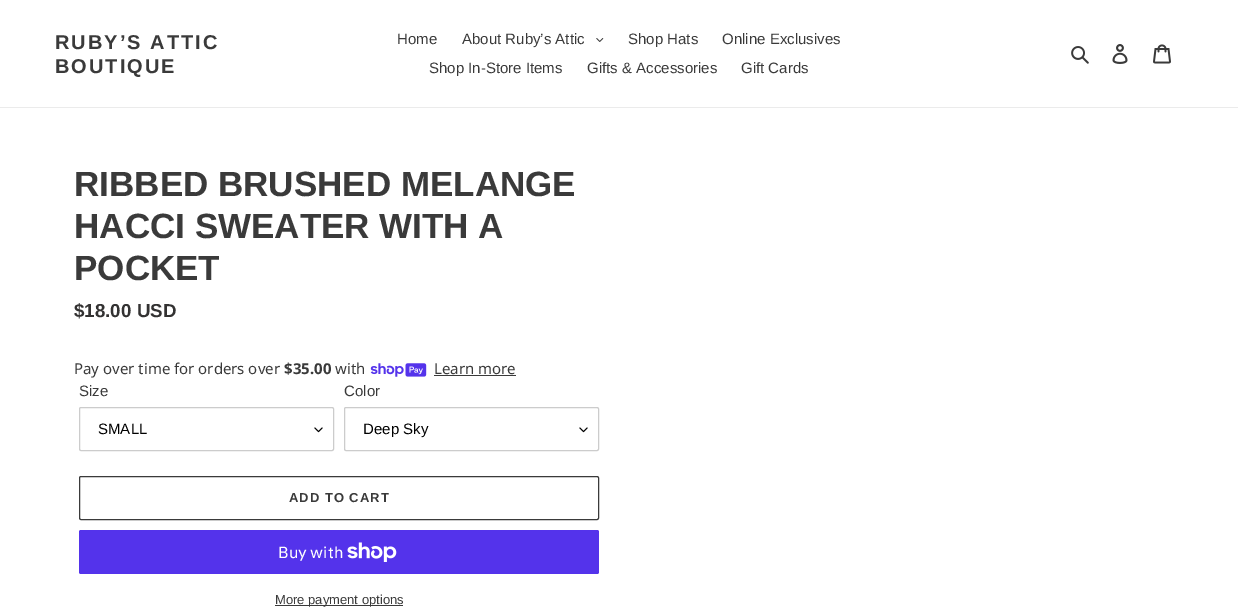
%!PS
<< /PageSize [1238 614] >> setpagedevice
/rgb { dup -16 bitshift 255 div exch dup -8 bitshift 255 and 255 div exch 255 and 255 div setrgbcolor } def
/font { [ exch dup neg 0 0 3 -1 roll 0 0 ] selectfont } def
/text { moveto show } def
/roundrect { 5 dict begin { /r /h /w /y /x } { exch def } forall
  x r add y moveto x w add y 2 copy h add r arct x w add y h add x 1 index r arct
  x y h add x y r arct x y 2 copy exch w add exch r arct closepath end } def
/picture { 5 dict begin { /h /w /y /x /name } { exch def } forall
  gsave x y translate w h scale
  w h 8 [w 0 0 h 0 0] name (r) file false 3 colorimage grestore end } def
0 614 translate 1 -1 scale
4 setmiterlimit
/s1 { /LiberationSans-Regular 15 font 16#3A3A3A rgb } def
/s2 { /LiberationSans-Bold 35 font 16#3A3A3A rgb } def
/s3 { /LiberationSans-Bold 18.75 font 16#333232 rgb } def
/s4 { /NotoSans-Regular 15 font 16#3A3A3A rgb } def
/s5 { /NotoSans-Bold 15 font 16#3A3A3A rgb } def
/s6 { /LiberationSans-Regular 15 font 16#000000 rgb } def
/s7 { /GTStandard-Regular 16 font 16#FFFFFF rgb } def
/s8 { /LiberationSans-Regular 13 font 16#3A3A3A rgb } def
16#FFFFFF rgb
0 0 1238 614 rectfill
16#EBEBEB rgb
0 107 1238 1 rectfill
/LiberationSans-Bold 20 font
16#3A3A3A rgb
55 49 moveto 2 0 (RUBY’S ATTIC) ashow
55 73 moveto 2 0 (BOUTIQUE) ashow
s1
(Home) 397 44 text
(About Ruby’s Attic) 462 44 text
(pic1.raw) 596 38 8 4 picture
(Shop Hats) 628 44 text
(Online Exclusives) 722 44 text
(Shop In-Store Items) 429 73 text
(Gifts & Accessories) 587 73 text
(Gift Cards) 741 73 text
(pic2.raw) 1071 46 18 18 picture
(pic3.raw) 1112 44 16 20 picture
(pic4.raw) 1153 44 18 20 picture
s2
(RIBBED BRUSHED MELANGE) 74 196 text
(HACCI SWEATER WITH A) 74 238 text
(POCKET) 74 280 text
s3
($18.00 USD) 74 317 text
s4
(Pay over time for orders over) 74 374 text
s5
($35.00) 284 374 text
s4
(with) 335 374 text
(pic5.raw) 370 363 57 14 picture
(Learn more) 434 374 text
434 375 82 1 rectfill
s1
(Size) 79 396 text
(pic6.raw) 314 427 9 6 picture
16#CCCCCC rgb
79.5 407.5 254 43 1.5 roundrect stroke
s6
(SMALL) 98 434 text
s1
(Color) 344 396 text
(pic6.raw) 579 427 9 6 picture
16#CCCCCC rgb
344.5 407.5 254 43 1.5 roundrect stroke
s6
(Deep Sky) 363 434 text
16#3A3A3A rgb
79.5 476.5 519 43 1.5 roundrect stroke
/LiberationSans-Bold 13 font
289 502 moveto 1 0 (ADD TO CART) ashow
16#5433EB rgb
79 530 520 44 2 roundrect fill
s7
(Buy with) 278 558 text
(pic7.raw) 347 542 50 20 picture
16#3A3A3A rgb
275 605 128 1 rectfill
s8
(More payment options) 275 604 text
showpage
